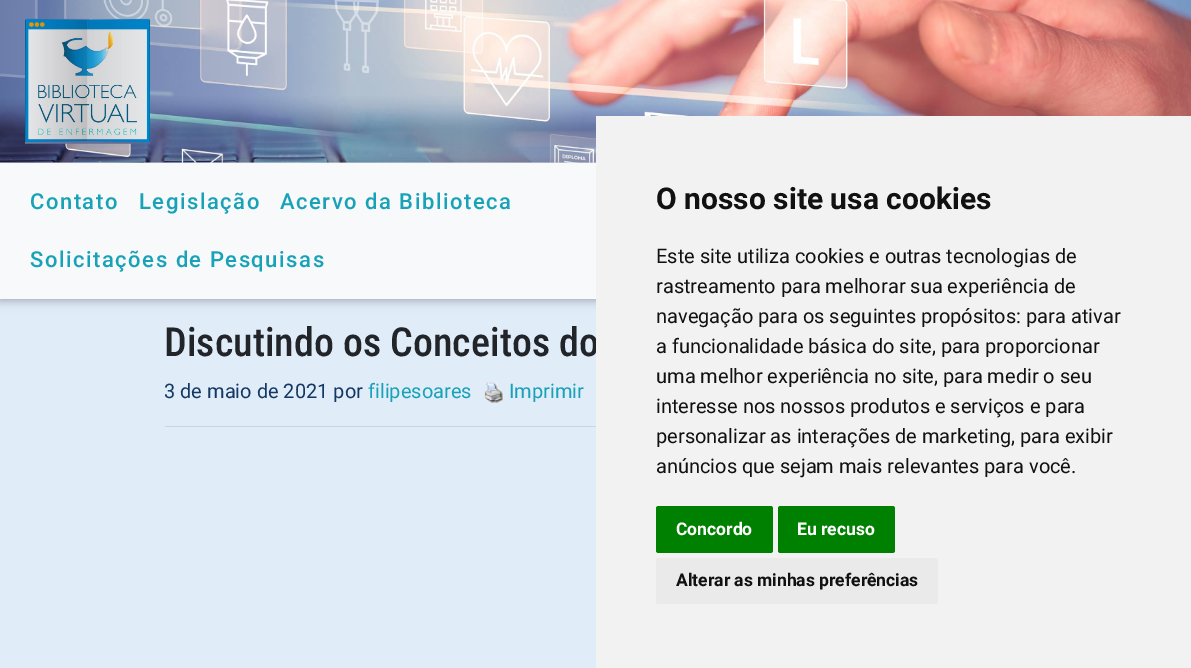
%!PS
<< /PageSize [1191 668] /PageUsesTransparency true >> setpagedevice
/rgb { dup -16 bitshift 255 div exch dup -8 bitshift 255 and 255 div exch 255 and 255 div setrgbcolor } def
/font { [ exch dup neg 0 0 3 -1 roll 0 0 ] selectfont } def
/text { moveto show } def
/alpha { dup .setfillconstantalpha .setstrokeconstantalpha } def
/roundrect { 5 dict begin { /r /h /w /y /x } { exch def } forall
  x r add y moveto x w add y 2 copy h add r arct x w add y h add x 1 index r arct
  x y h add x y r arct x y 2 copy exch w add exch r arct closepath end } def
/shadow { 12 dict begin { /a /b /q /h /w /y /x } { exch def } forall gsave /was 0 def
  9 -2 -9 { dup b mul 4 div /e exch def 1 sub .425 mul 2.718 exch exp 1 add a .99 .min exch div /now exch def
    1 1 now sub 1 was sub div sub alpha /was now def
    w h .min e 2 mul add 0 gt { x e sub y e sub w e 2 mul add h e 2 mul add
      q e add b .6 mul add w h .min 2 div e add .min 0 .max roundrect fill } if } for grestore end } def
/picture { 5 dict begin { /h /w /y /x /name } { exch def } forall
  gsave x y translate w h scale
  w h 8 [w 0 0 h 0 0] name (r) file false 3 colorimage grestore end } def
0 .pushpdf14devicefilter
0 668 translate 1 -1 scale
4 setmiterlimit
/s1 { /RobotoCondensed-Medium 40 font 16#212529 rgb } def
/s2 { /Roboto-Bold 30 font 16#111111 rgb } def
/s3 { /Roboto-Regular 20 font 16#111111 rgb } def
/s4 { /Roboto-Bold 17.5 font 16#FFFFFF rgb } def
/s5 { /Roboto-Bold 17.5 font 16#111111 rgb } def
/s6 { /Roboto-Regular 20 font 16#133863 rgb } def
/s7 { /Roboto-Regular 20 font 16#17A2B8 rgb } def
16#E1ECF9 rgb
0 0 1191 668 rectfill
(pic1.raw) 0 0 1191 163 picture
(pic2.raw) 25 18 125 126 picture
16#000000 rgb
0 165 1191 136 0 6 0.12 shadow
0 165 1191 136 0 3 0.16 shadow
16#F8F9FA rgb
0 163 596 136 rectfill
/Roboto-Medium 22 font
16#17A2B8 rgb
30 209 moveto 1.5 0 (Contato) ashow
139 209 moveto 1.5 0 (Legislação) ashow
280 209 moveto 1.5 0 (Acervo da Biblioteca) ashow
30 267 moveto 1.5 0 (Solicitações de Pesquisas) ashow
s1
(Discutindo os Conceitos do) 164 356 text
16#F2F2F2 rgb
596 116 595 552 rectfill
s2
(O nosso site usa cookies) 656 209 text
s3
(Este site utiliza cookies e outras tecnologias de) 656 263 text
(rastreamento para melhorar sua experiência de) 656 293 text
(navegação para os seguintes propósitos: para ativar) 656 323 text
(a funcionalidade básica do site, para proporcionar) 656 353 text
(uma melhor experiência no site, para medir o seu) 656 383 text
(interesse nos nossos produtos e serviços e para) 656 413 text
(personalizar as interações de marketing, para exibir) 656 443 text
(anúncios que sejam mais relevantes para você.) 656 473 text
16#008000 rgb
656 506 117 47 2.5 roundrect fill
s4
(Concordo) 676 535 text
16#008000 rgb
778 506 117 47 2.5 roundrect fill
s4
(Eu recuso) 797 535 text
16#EAEAEA rgb
656 558 282 46 2.5 roundrect fill
s5
(Alterar as minhas preferências) 676 586 text
s6
(3 de maio de 2021 por) 164 398 text
s7
(filipesoares) 368 398 text
(pic3.raw) 484 382 20 21 picture
(Imprimir) 509 398 text
16#CBD4E0 rgb
165 426 431 1 rectfill
.poppdf14devicefilter showpage
